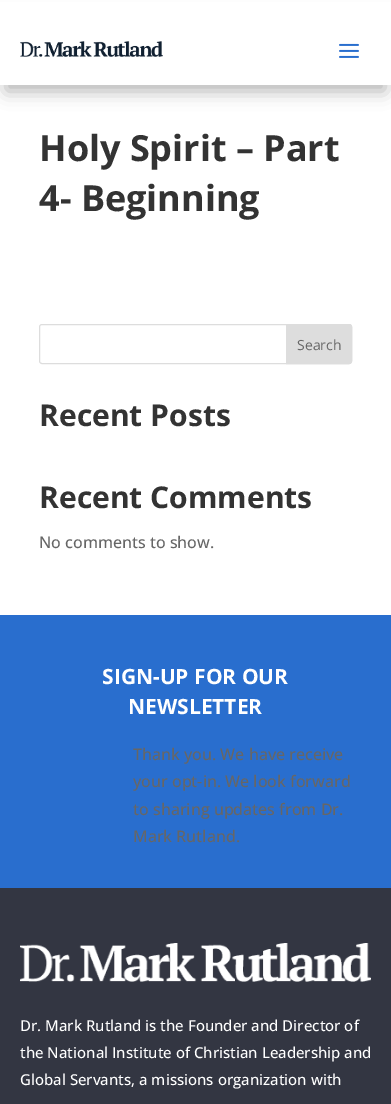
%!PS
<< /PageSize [391 1104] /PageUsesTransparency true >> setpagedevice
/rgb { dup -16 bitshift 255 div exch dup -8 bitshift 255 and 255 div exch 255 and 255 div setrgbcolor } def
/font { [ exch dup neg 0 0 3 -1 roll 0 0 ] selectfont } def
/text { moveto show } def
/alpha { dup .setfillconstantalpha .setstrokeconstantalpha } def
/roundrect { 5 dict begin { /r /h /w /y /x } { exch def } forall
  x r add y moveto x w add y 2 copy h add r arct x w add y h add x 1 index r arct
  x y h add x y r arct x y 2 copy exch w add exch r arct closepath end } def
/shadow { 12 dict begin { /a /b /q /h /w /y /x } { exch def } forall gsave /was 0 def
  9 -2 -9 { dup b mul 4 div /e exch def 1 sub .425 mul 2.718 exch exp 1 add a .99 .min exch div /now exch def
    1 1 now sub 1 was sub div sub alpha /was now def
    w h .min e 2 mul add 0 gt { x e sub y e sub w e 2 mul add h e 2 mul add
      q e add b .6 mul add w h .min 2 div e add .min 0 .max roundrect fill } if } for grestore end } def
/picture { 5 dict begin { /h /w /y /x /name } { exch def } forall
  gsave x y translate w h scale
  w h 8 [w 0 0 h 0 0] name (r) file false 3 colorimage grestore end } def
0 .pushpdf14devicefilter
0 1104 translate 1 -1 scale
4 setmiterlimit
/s1 { /OpenSans-Bold 36 font 16#333333 rgb } def
/s2 { /OpenSans-Regular 14 font 16#666666 rgb } def
/s3 { /OpenSans-Bold 30 font 16#333333 rgb } def
/s4 { /OpenSans-Medium 16 font 16#666666 rgb } def
/s5 { /OpenSans-Bold 21 font 16#FFFFFF rgb } def
/s6 { /OpenSans-Medium 15 font 16#FFFFFF rgb } def
16#FFFFFF rgb
0 0 391 1104 rectfill
16#000000 rgb
6 18 379 73 0 9 0.3 shadow
16#FFFFFF rgb
0 2 391 83 rectfill
(pic1.raw) 20 41 143 16 picture
(pic2.raw) 339 43 20 15 picture
s1
(Holy Spirit – Part) 39 161 text
(4- Beginning) 39 211 text
16#DDDDDD rgb
39.5 324.5 312 39 2.5 roundrect stroke
286.5 324.5 moveto 349 324.5 lineto 350.5 324.5 351.5 325.5 351.5 327 curveto 351.5 361 lineto 351.5 362.5 350.5 363.5 349 363.5 curveto 286.5 363.5 lineto closepath gsave fill grestore
stroke
s2
(Search) 297 350 text
s3
(Recent Posts) 39 426 text
(Recent Comments) 39 508 text
s4
(No comments to show.) 39 548 text
16#296ECE rgb
0 615 391 273 rectfill
s5
(SIGN-UP FOR OUR) 102 684 text
(NEWSLETTER) 128 714 text
s4
(Thank you. We have receive) 133 760 text
(your opt-in. We look forward) 133 787 text
(to sharing updates from Dr.) 133 815 text
(Mark Rutland.) 133 842 text
16#333642 rgb
0 888 391 216 rectfill
(pic3.raw) 20 943 351 39 picture
s6
(Dr. Mark Rutland is the Founder and Director of) 20 1031 text
(the National Institute of Christian Leadership and) 20 1058 text
(Global Servants, a missions organization with) 20 1085 text
.poppdf14devicefilter showpage
